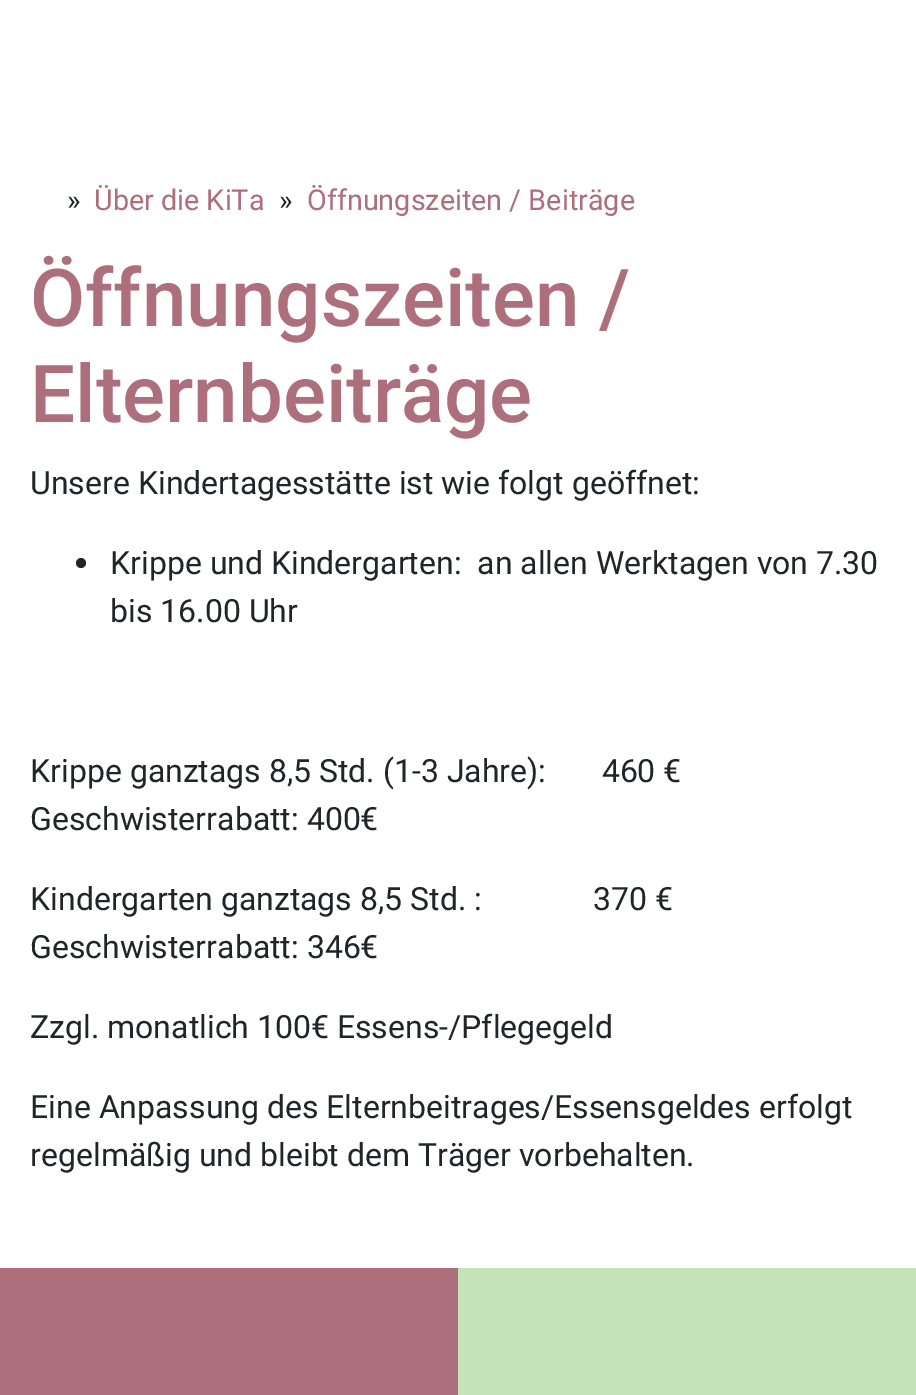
%!PS
<< /PageSize [916 1395] >> setpagedevice
/rgb { dup -16 bitshift 255 div exch dup -8 bitshift 255 and 255 div exch 255 and 255 div setrgbcolor } def
/font { [ exch dup neg 0 0 3 -1 roll 0 0 ] selectfont } def
/text { moveto show } def
/circle { newpath 0 360 arc closepath } def
0 1395 translate 1 -1 scale
4 setmiterlimit
/s1 { /Roboto-Regular 28.75 font 16#212529 rgb } def
/s2 { /Roboto-Regular 28.75 font 16#AD6F7B rgb } def
/s3 { /Roboto-Medium 80 font 16#AD6F7B rgb } def
/s4 { /Roboto-Regular 32 font 16#212529 rgb } def
16#AD6F7B rgb
0 0 916 1395 rectfill
16#C4E3B9 rgb
458 1268 458 127 rectfill
16#FFFFFF rgb
0 0 916 1268 rectfill
s1
(») 67 210 text
s2
(Über die KiTa) 94 210 text
s1
(») 279 210 text
s2
(Öffnungszeiten / Beiträge) 307 210 text
s3
(Öffnungszeiten /) 30 326 text
(Elternbeiträge) 30 422 text
s4
(Unsere Kindertagesstätte ist wie folgt geöffnet:) 30 494 text
81 563 5 circle fill
(Krippe und Kindergarten:  an allen Werktagen von 7.30) 110 574 text
(bis 16.00 Uhr) 110 622 text
(Krippe ganztags 8,5 Std. \(1-3 Jahre\):       460 €) 30 782 text
(Geschwisterrabatt: 400€) 30 830 text
(Kindergarten ganztags 8,5 Std. :              370 €) 30 910 text
(Geschwisterrabatt: 346€) 30 958 text
(Zzgl. monatlich 100€ Essens-/Pflegegeld) 30 1038 text
(Eine Anpassung des Elternbeitrages/Essensgeldes erfolgt) 30 1118 text
(regelmäßig und bleibt dem Träger vorbehalten.) 30 1166 text
showpage
